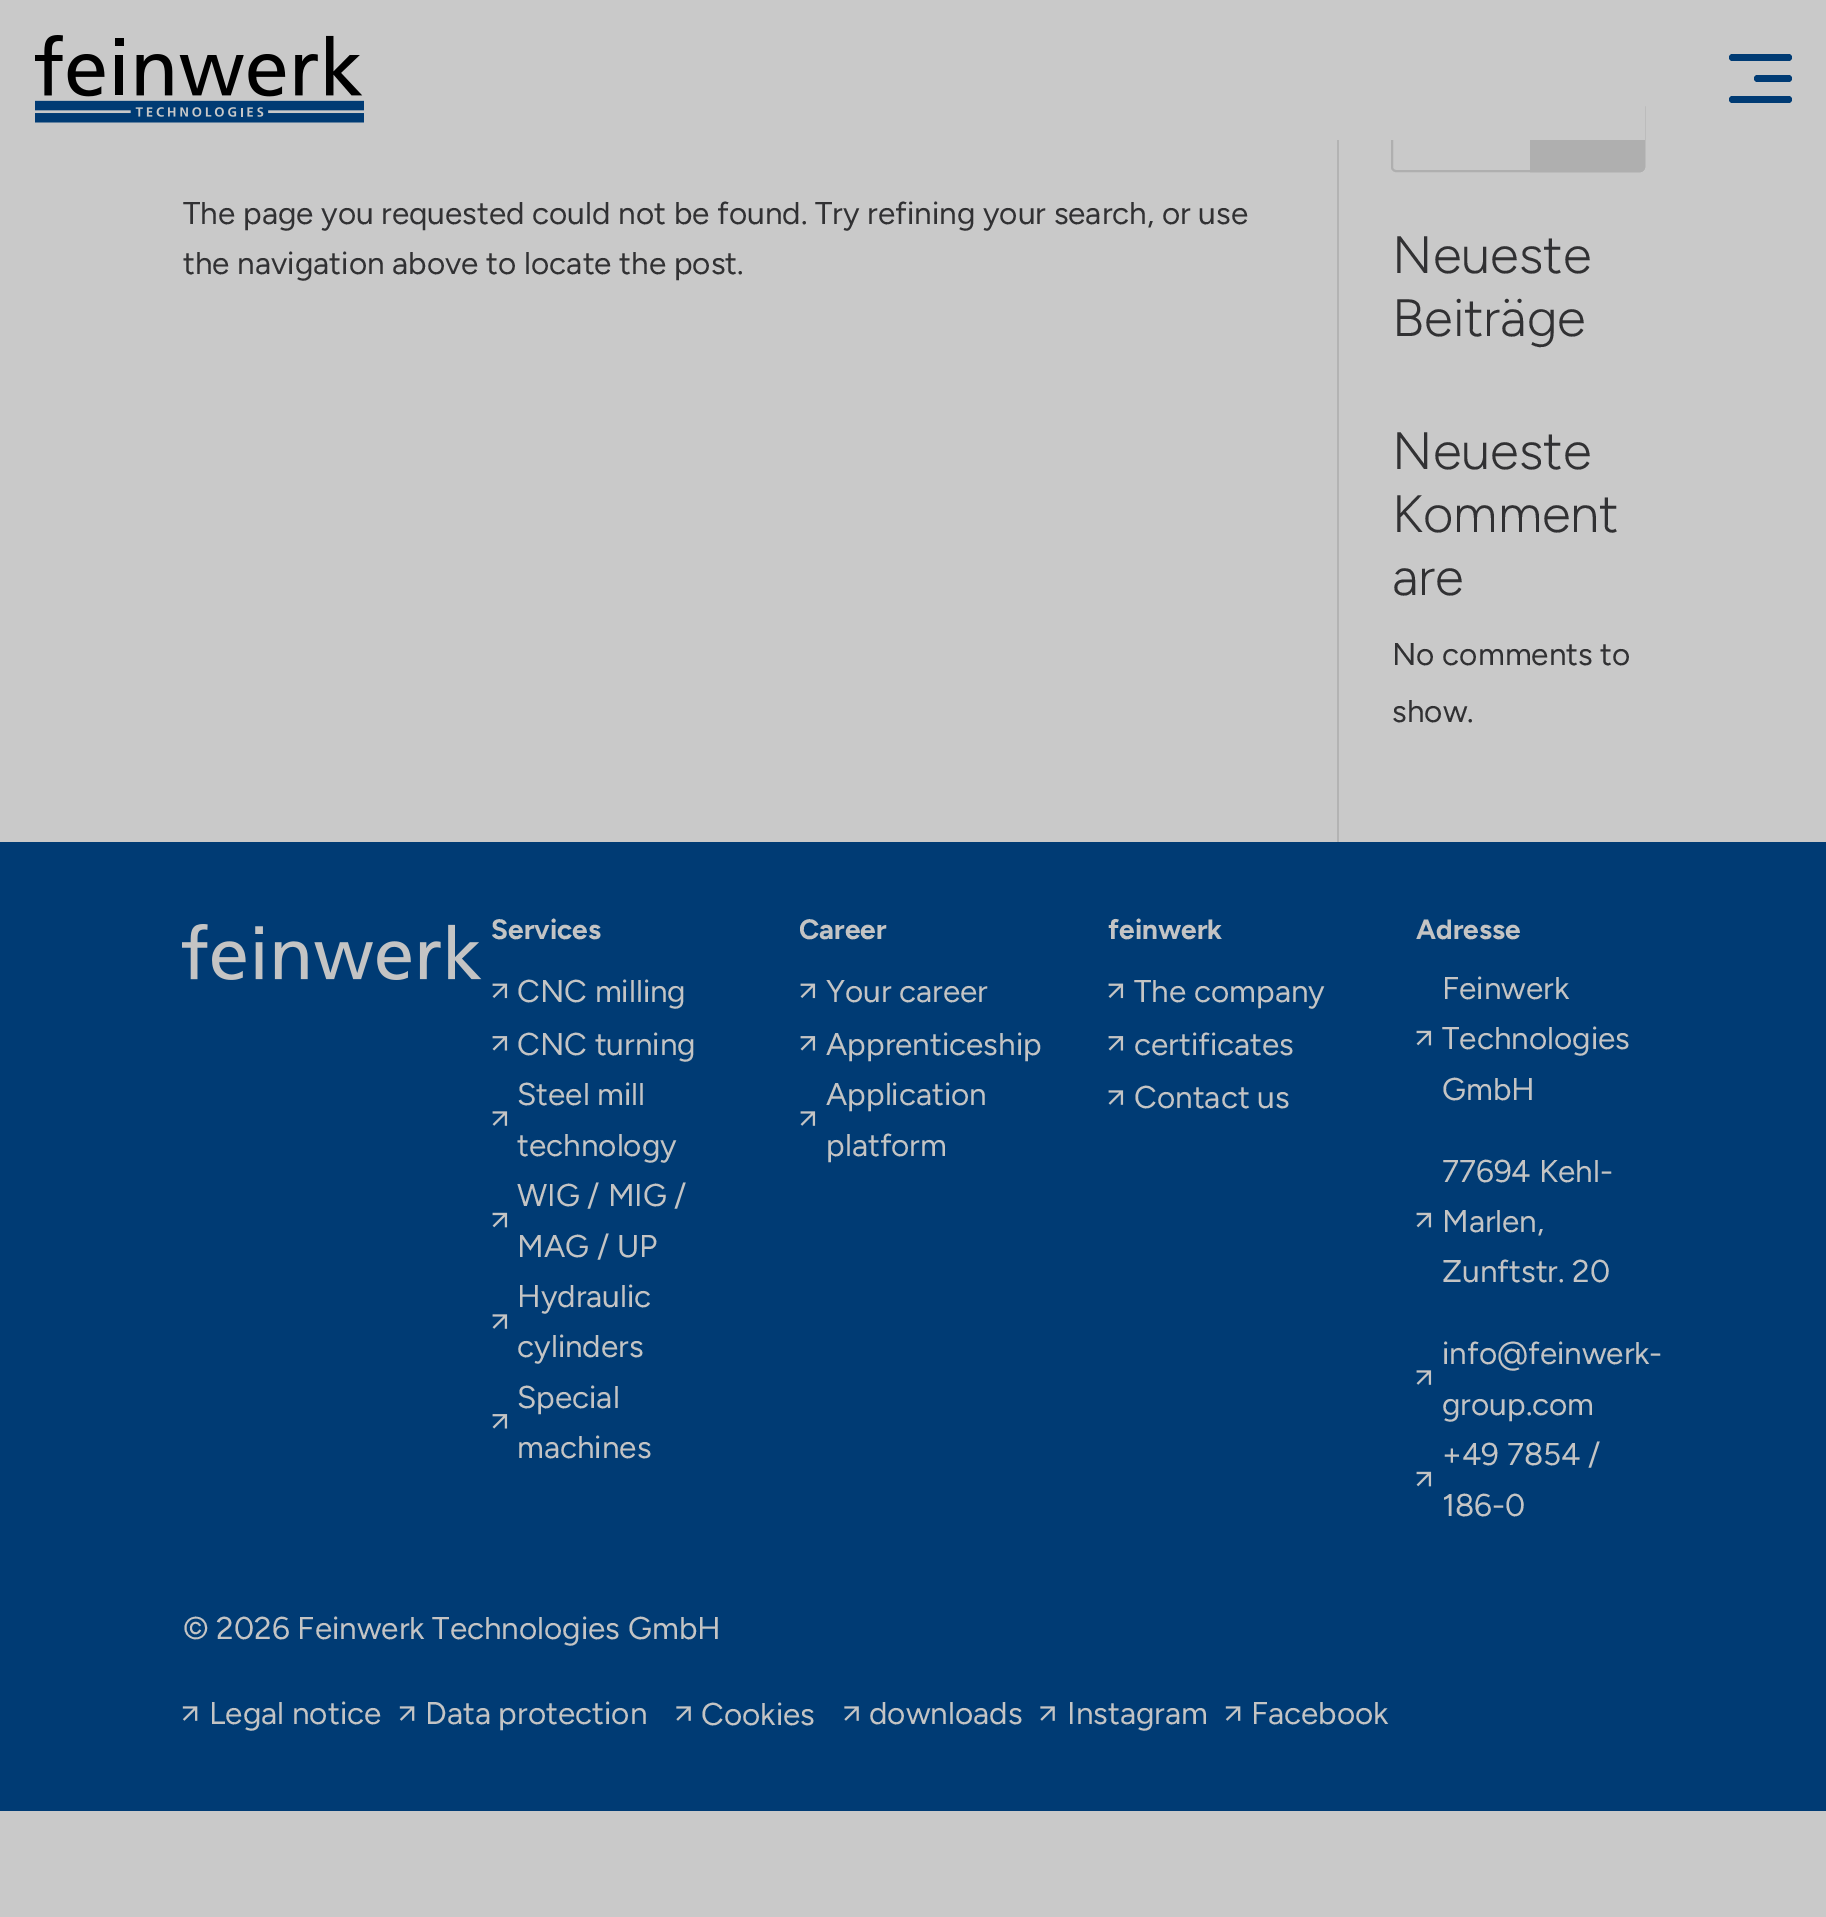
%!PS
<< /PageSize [1826 1917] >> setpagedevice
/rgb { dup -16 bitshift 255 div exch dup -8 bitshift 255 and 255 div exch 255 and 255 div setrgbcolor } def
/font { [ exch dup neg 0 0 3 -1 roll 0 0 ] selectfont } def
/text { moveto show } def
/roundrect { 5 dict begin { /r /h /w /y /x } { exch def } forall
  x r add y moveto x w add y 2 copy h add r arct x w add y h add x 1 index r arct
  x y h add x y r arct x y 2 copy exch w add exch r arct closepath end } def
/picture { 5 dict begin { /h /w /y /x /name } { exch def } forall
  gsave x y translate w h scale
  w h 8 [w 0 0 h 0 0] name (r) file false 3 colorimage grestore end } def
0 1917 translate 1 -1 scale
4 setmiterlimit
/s1 { /Figtree-Regular 31.5 font 16#313133 rgb } def
/s2 { /Figtree-Light 52.5 font 16#313133 rgb } def
/s3 { /Figtree-Bold 28 font 16#C4C4C4 rgb } def
/s4 { /Figtree-Regular 31.5 font 16#C4C4C4 rgb } def
16#C9C9C9 rgb
0 0 1826 1917 rectfill
16#AFAFAF rgb
2 setlinewidth
1392 103 252 68 4 roundrect stroke
1531 103 moveto 1640 103 lineto 1642 103 1644 105 1644 107 curveto 1644 167 lineto 1644 169 1642 171 1640 171 curveto 1531 171 lineto closepath gsave fill grestore
stroke
16#C9C9C9 rgb
1391 102 254 38 rectfill
(pic1.raw) 35 35 329 88 picture
16#003B74 rgb
1729 54 63 7 3.5 roundrect fill
1754 75 38 7 3.5 roundrect fill
1729 96 63 7 3.5 roundrect fill
16#B3B3B3 rgb
1337 140 2 702 rectfill
s1
(The page you requested could not be found. Try refining your search, or use) 183 224 text
(the navigation above to locate the post.) 183 274 text
s2
(Neueste) 1392 273 text
(Beiträge) 1392 336 text
(Neueste) 1392 469 text
(Komment) 1392 532 text
(are) 1392 595 text
s1
(No comments to) 1392 665 text
(show.) 1392 722 text
16#003B74 rgb
0 842 1826 969 rectfill
(pic2.raw) 182 924 300 56 picture
s3
(Services) 491 939 text
(pic3.raw) 492 983 16 16 picture
s4
(CNC milling) 517 1002 text
(pic4.raw) 492 1036 16 15 picture
(CNC turning) 517 1055 text
(Steel mill) 517 1105 text
(pic5.raw) 492 1111 16 15 picture
(technology) 517 1156 text
(WIG / MIG /) 517 1206 text
(pic6.raw) 492 1212 16 16 picture
(MAG / UP) 517 1257 text
(Hydraulic) 517 1307 text
(pic5.raw) 492 1314 16 15 picture
(cylinders) 517 1357 text
(Special) 517 1408 text
(pic4.raw) 492 1414 16 15 picture
(machines) 517 1458 text
s3
(Career) 799 939 text
(pic3.raw) 800 983 16 16 picture
s4
(Your career) 826 1002 text
(pic4.raw) 800 1036 16 15 picture
(Apprenticeship) 826 1055 text
(Application) 826 1105 text
(pic5.raw) 800 1111 16 15 picture
(platform) 826 1156 text
s3
(feinwerk) 1108 939 text
(pic3.raw) 1108 983 16 16 picture
s4
(The company) 1134 1002 text
(pic4.raw) 1108 1036 16 15 picture
(certificates) 1134 1055 text
(pic5.raw) 1108 1090 16 15 picture
(Contact us) 1134 1108 text
s3
(Adresse) 1416 939 text
s4
(Feinwerk) 1442 999 text
(pic6.raw) 1416 1030 16 16 picture
(Technologies) 1442 1049 text
(GmbH) 1442 1100 text
(77694 Kehl-) 1442 1182 text
(pic6.raw) 1416 1212 16 16 picture
(Marlen,) 1442 1232 text
(Zunftstr. 20) 1442 1282 text
(info@feinwerk-) 1442 1364 text
(pic5.raw) 1416 1370 16 15 picture
(group.com) 1442 1415 text
(+49 7854 /) 1442 1465 text
(pic6.raw) 1416 1471 16 16 picture
(186-0) 1442 1516 text
(© 2026 Feinwerk Technologies GmbH) 183 1639 text
(pic7.raw) 182 1706 16 15 picture
(Legal notice) 209 1724 text
(pic7.raw) 399 1706 16 15 picture
(Data protection) 425 1724 text
(pic8.raw) 676 1706 15 15 picture
(Cookies) 701 1725 text
(pic8.raw) 844 1706 15 15 picture
(downloads) 869 1724 text
(pic8.raw) 1040 1706 15 15 picture
(Instagram) 1067 1724 text
(pic7.raw) 1225 1706 16 15 picture
(Facebook) 1251 1724 text
showpage
